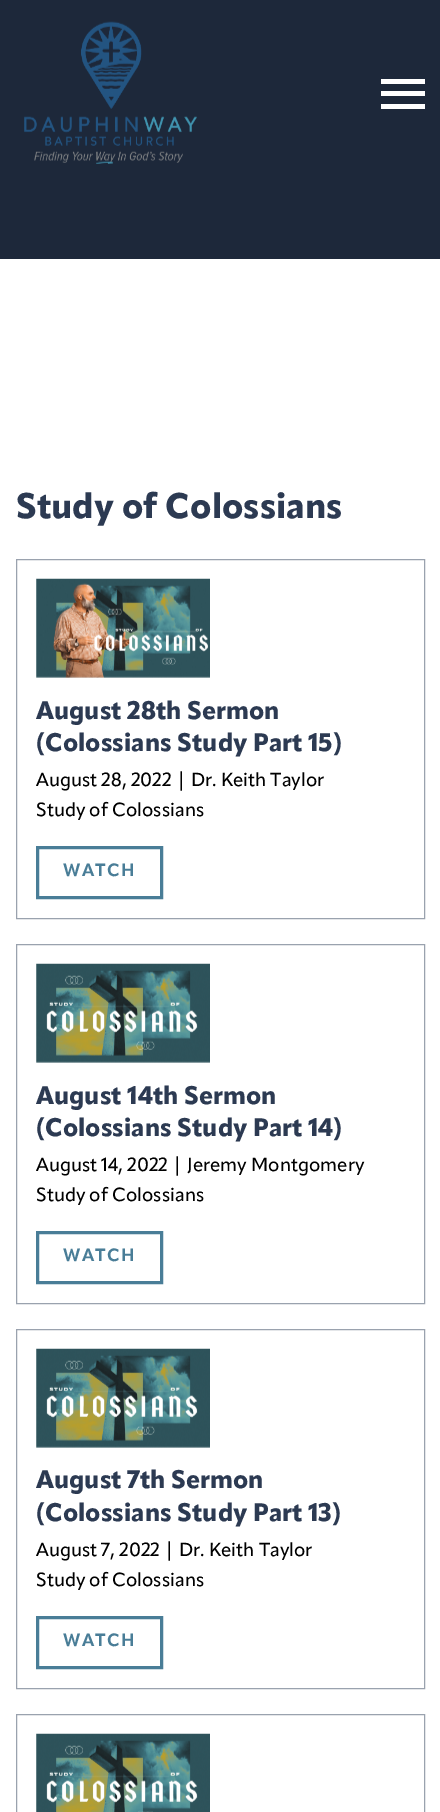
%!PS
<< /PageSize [440 1812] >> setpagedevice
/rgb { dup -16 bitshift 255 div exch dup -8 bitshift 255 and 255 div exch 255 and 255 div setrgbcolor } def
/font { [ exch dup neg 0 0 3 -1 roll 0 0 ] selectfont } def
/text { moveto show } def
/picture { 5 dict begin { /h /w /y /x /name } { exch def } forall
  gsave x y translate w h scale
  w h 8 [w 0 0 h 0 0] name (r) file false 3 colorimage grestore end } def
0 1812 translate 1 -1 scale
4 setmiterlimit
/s1 { /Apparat-ExtraBold 35 font 16#2C3A52 rgb } def
/s2 { /Apparat-ExtraBold 25 font 16#2C3A52 rgb } def
/s3 { /Apparat-Medium 18.75 font 16#000000 rgb } def
16#FFFFFF rgb
0 0 440 1812 rectfill
16#1D283A rgb
0 0 440 259 rectfill
(pic1.raw) 24 21 173 143 picture
16#FFFFFF rgb
381 79 44 5 rectfill
381 91 44 5 rectfill
381 104 44 5 rectfill
s1
(Study of Colossians) 16 518 text
16#9AA2AE rgb
16.5 559.5 408 359 rectstroke
(pic2.raw) 36 578 174 100 picture
s2
(August 28th Sermon) 36 719 text
(\(Colossians Study Part 15\)) 36 751 text
s3
(August 28, 2022 | Dr. Keith Taylor) 36 786 text
(Study of Colossians) 36 816 text
16#497D97 rgb
3 setlinewidth
37.5 847.5 124 50 rectstroke
/Apparat-Bold 17.5 font
63 876 moveto 1.25 0 (WATCH) ashow
16#9AA2AE rgb
1 setlinewidth
16.5 944.5 408 359 rectstroke
(pic3.raw) 36 963 174 100 picture
s2
(August 14th Sermon) 36 1104 text
(\(Colossians Study Part 14\)) 36 1136 text
s3
(August 14, 2022 | Jeremy Montgomery) 36 1171 text
(Study of Colossians) 36 1201 text
16#497D97 rgb
3 setlinewidth
37.5 1232.5 124 50 rectstroke
/Apparat-Bold 17.5 font
63 1261 moveto 1.25 0 (WATCH) ashow
16#9AA2AE rgb
1 setlinewidth
16.5 1329.5 408 359 rectstroke
(pic4.raw) 36 1348 174 100 picture
s2
(August 7th Sermon) 36 1488 text
(\(Colossians Study Part 13\)) 36 1521 text
s3
(August 7, 2022 | Dr. Keith Taylor) 36 1556 text
(Study of Colossians) 36 1586 text
16#497D97 rgb
3 setlinewidth
37.5 1617.5 124 50 rectstroke
/Apparat-Bold 17.5 font
63 1646 moveto 1.25 0 (WATCH) ashow
16#9AA2AE rgb
1 setlinewidth
16.5 1714.5 408 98 rectstroke
(pic5.raw) 36 1733 174 79 picture
showpage
